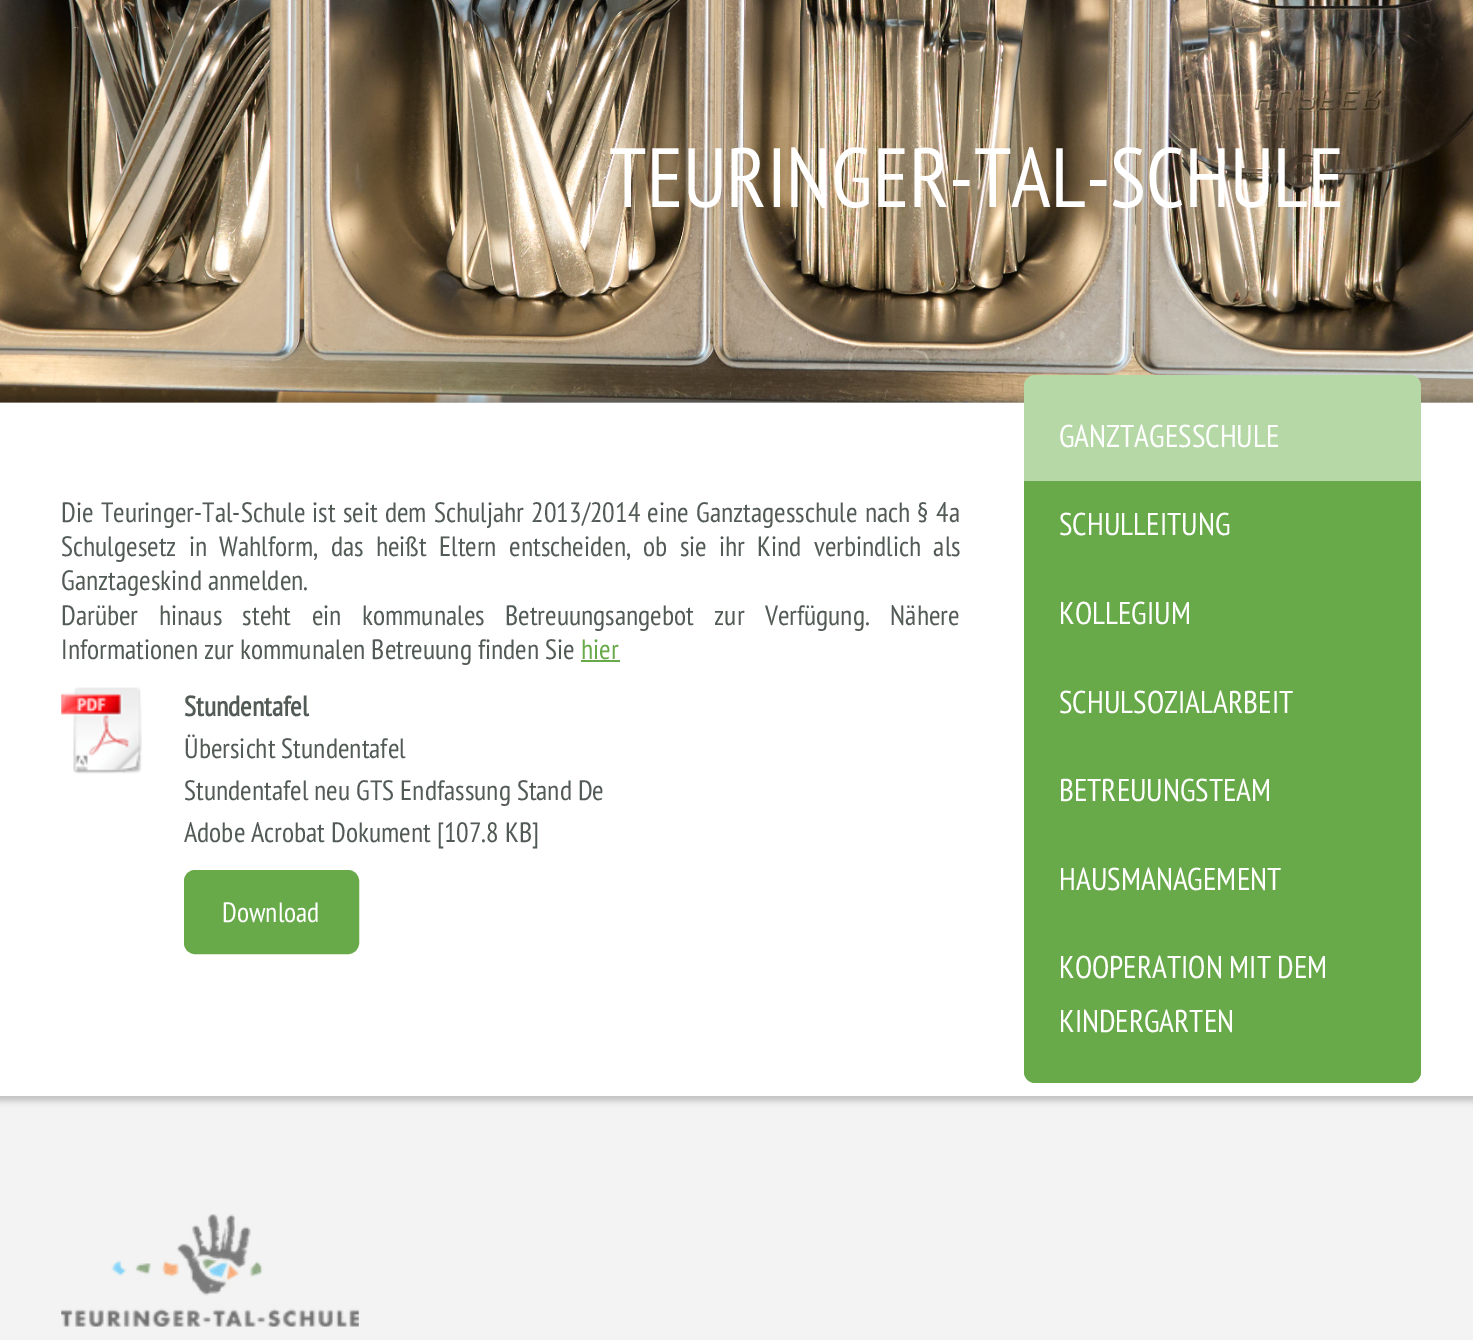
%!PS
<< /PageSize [1473 1340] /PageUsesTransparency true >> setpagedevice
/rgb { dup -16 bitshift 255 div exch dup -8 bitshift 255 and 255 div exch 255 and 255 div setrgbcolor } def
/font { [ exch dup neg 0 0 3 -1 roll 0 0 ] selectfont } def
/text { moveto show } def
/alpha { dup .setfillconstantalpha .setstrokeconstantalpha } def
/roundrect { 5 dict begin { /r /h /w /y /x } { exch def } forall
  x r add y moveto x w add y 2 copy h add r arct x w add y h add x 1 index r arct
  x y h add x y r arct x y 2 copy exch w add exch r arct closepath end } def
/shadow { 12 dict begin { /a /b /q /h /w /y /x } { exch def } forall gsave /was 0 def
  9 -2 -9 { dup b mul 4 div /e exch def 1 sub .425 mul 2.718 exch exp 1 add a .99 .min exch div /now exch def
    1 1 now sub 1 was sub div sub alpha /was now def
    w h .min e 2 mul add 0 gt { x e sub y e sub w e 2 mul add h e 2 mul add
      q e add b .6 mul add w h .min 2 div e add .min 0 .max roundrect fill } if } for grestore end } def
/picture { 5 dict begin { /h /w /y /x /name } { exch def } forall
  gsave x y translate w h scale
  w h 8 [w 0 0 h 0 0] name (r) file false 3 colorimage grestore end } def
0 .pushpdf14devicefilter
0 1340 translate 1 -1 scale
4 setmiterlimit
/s1 { /PTSansNarrow-Regular 84 font 16#FFFFFF rgb } def
/s2 { /PTSansNarrow-Regular 28 font 16#525B56 rgb } def
/s3 { /PTSansNarrow-Regular 28 font 16#68A94A rgb } def
/s4 { /PTSansNarrow-Bold 28 font 16#525B56 rgb } def
/s5 { /PTSansNarrow-Regular 28 font 16#FFFFFF rgb } def
/s6 { /PTSansNarrow-Regular 31.5 font 16#FFFFFF rgb } def
16#FFFFFF rgb
0 0 1473 1340 rectfill
(pic1.raw) 0 0 1473 403 picture
s1
(TEURINGER-TAL-SCHULE) 609 207 text
16#F2F3F2 rgb
0 1096 1473 244 rectfill
16#000000 rgb
-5 397 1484 704 0 3 0.2 shadow
16#FFFFFF rgb
0 403 1473 693 rectfill
/PTSansNarrow-Regular 28 font
16#525B56 rgb
61 522 moveto 1.25 0 32 (Die Teuringer-Tal-Schule ist seit dem Schuljahr 2013/2014 eine Ganztagesschule nach § 4a) widthshow
61 556 moveto 6.25 0 32 (Schulgesetz in Wahlform, das heißt Eltern entscheiden, ob sie ihr Kind verbindlich als) widthshow
(Ganztageskind anmelden.) 61 590 text
61 625 moveto 14.5 0 32 (Darüber hinaus steht ein kommunales Betreuungsangebot zur Verfügung. Nähere) widthshow
(Informationen zur kommunalen Betreuung finden Sie) 61 659 text
s3
(hier) 581 659 text
581 660 39 2 rectfill
(pic2.raw) 61 687 81 87 picture
s4
(Stundentafel) 184 716 text
s2
(Übersicht Stundentafel) 184 758 text
(Stundentafel neu GTS Endfassung Stand De) 184 800 text
(Adobe Acrobat Dokument [107.8 KB]) 184 842 text
16#68A94A rgb
186 872 171 80 9 roundrect gsave fill grestore
4 setlinewidth
stroke
s5
(Download) 222 922 text
16#B5D8A6 rgb
1035 375 moveto 1410 375 lineto 1416 375 1421 380 1421 386 curveto 1421 481 lineto 1024 481 lineto 1024 386 lineto 1024 380 1029 375 1035 375 curveto closepath fill
s6
(GANZTAGESSCHULE) 1059 447 text
16#68A94A rgb
1024 481 397 443 rectfill
s6
(SCHULLEITUNG) 1059 535 text
(KOLLEGIUM) 1059 624 text
(SCHULSOZIALARBEIT) 1059 713 text
(BETREUUNGSTEAM) 1059 801 text
(HAUSMANAGEMENT) 1059 890 text
16#68A94A rgb
1024 924 moveto 1421 924 lineto 1421 1072 lineto 1421 1078 1416 1083 1410 1083 curveto 1035 1083 lineto 1029 1083 1024 1078 1024 1072 curveto closepath fill
s6
(KOOPERATION MIT DEM) 1059 978 text
(KINDERGARTEN) 1059 1032 text
(pic3.raw) 61 1214 298 113 picture
.poppdf14devicefilter showpage
